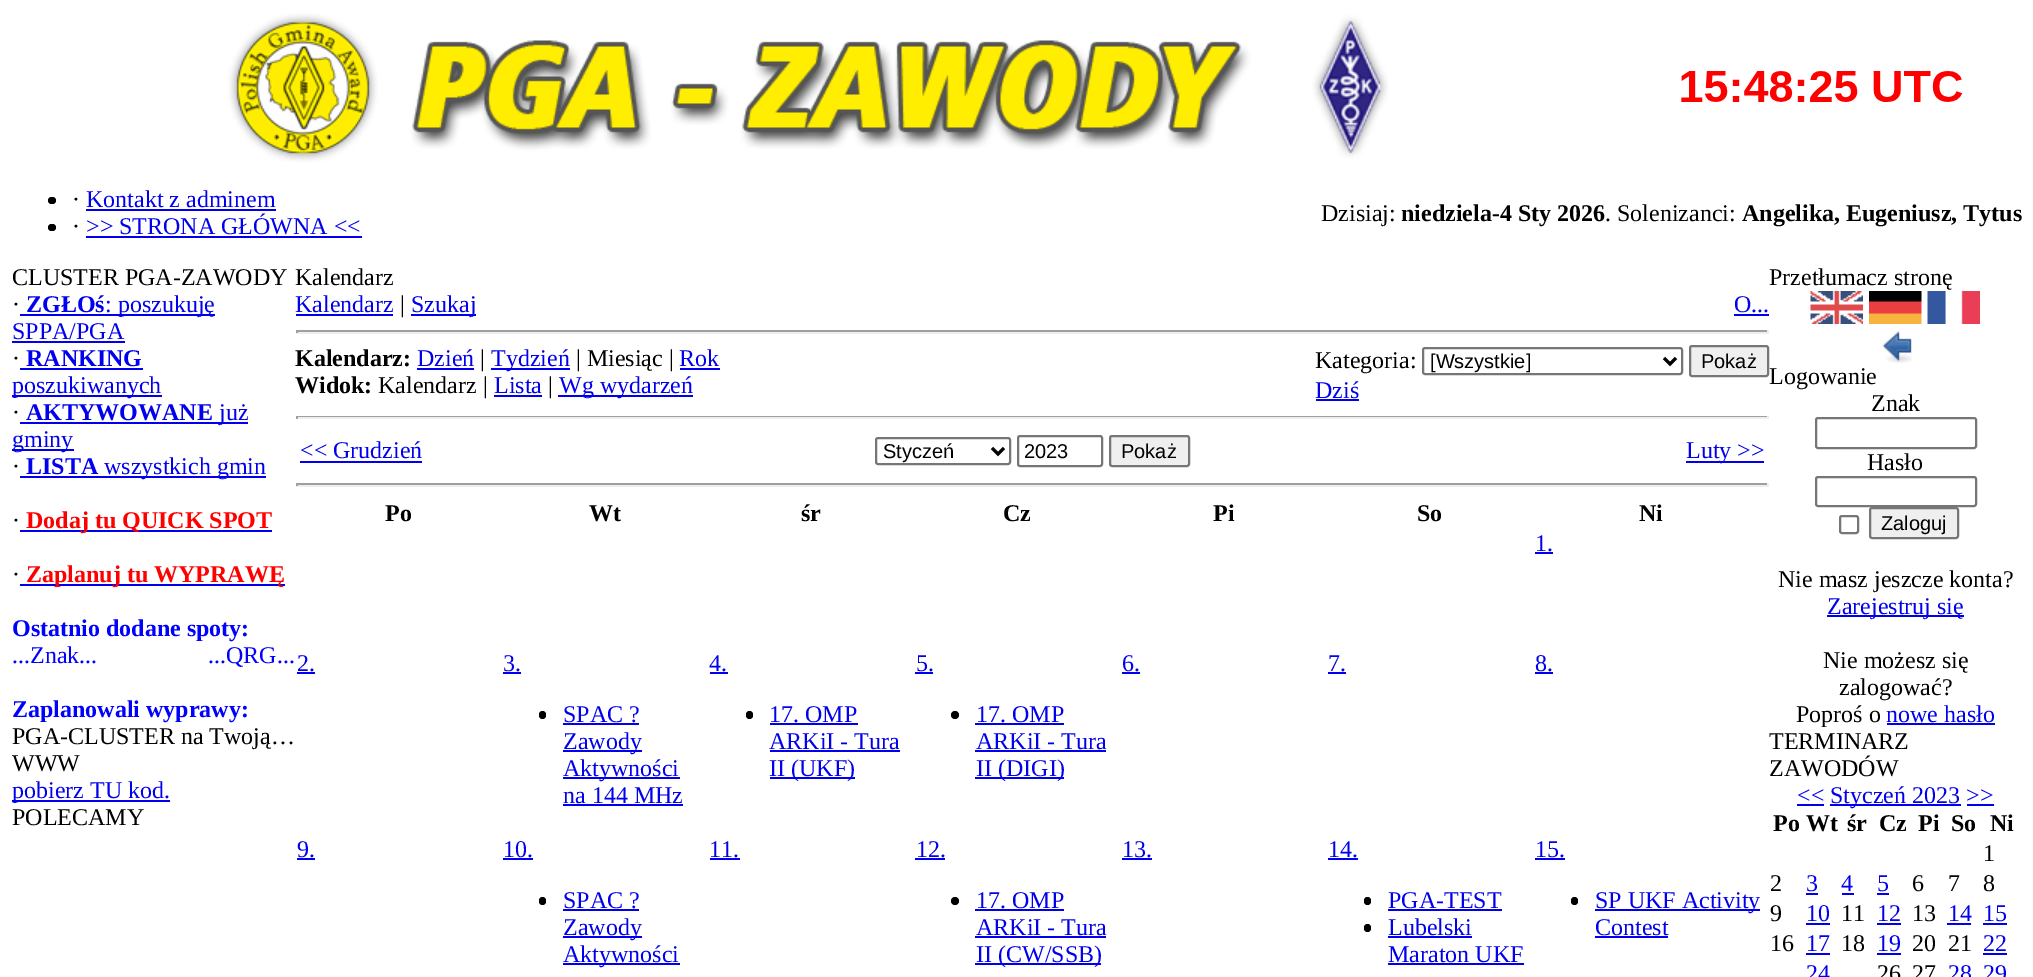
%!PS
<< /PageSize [2033 977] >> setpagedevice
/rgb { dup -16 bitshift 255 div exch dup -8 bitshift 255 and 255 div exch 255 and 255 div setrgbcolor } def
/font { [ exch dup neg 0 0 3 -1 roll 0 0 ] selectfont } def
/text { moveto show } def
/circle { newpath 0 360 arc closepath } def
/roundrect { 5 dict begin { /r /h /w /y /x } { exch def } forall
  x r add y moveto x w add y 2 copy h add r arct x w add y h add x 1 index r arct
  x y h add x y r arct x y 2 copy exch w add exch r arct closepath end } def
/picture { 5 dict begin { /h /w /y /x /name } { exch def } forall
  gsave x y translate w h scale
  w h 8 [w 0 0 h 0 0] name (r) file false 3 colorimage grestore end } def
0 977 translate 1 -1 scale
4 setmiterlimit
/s1 { /LiberationSerif-Regular 24 font 16#000000 rgb } def
/s2 { /LiberationSerif-Regular 24 font 16#0000EE rgb } def
/s3 { /LiberationSerif-Bold 24 font 16#000000 rgb } def
/s4 { /LiberationSerif-Bold 24 font 16#0000EE rgb } def
/s5 { /LiberationSerif-Bold 24 font 16#FF0000 rgb } def
/s6 { /LiberationSerif-Bold 24 font 16#0000FF rgb } def
/s7 { /LiberationSerif-Regular 24 font 16#0000FF rgb } def
/s8 { /LiberationSans-Regular 20 font 16#000000 rgb } def
16#FFFFFF rgb
0 0 2033 977 rectfill
(pic1.raw) 228 13 1161 149 picture
(pic2.raw) 1681 71 282 31 picture
16#000000 rgb
48 197 8 7 3.5 roundrect fill
s1
(·) 72 207 text
s2
(Kontakt z adminem) 86 207 text
86 209 190 2 rectfill
16#000000 rgb
48 224 8 7 3.5 roundrect fill
(·) 72 234 text
s2
(>> STRONA GŁÓWNA <<) 86 234 text
86 236 276 2 rectfill
s1
(Dzisiaj:) 1321 221 text
s3
(niedziela-4 Sty 2026) 1401 221 text
s1
(. Solenizanci:) 1605 221 text
s3
(Angelika, Eugeniusz, Tytus) 1742 221 text
s1
(CLUSTER PGA-ZAWODY) 12 285 text
(·) 12 312 text
s4
(ZGŁOś) 26 312 text
20 314 195 2 rectfill
s2
(: poszukuję) 105 312 text
(SPPA/PGA) 12 339 text
12 341 113 2 rectfill
s1
(·) 12 366 text
s4
(RANKING) 26 366 text
20 368 123 2 rectfill
12 395 150 2 rectfill
s2
(poszukiwanych) 12 393 text
s1
(·) 12 420 text
s4
(AKTYWOWANE) 26 420 text
20 422 228 2 rectfill
s2
(już) 219 420 text
12 449 62 2 rectfill
(gminy) 12 447 text
s1
(·) 12 474 text
s4
(LISTA) 26 474 text
20 476 246 2 rectfill
s2
(wszystkich gmin) 104 474 text
s1
(·) 12 528 text
16#0000EE rgb
20 530 252 2 rectfill
s5
(Dodaj tu QUICK SPOT) 26 528 text
s1
(·) 12 582 text
16#0000EE rgb
20 584 265 2 rectfill
s5
(Zaplanuj tu WYPRAWĘ) 26 582 text
s6
(Ostatnio dodane spoty:) 12 636 text
s7
(...Znak...) 12 663 text
(...QRG...) 208 663 text
s6
(Zaplanowali wyprawy:) 12 717 text
s1
(PGA-CLUSTER na Twoją…) 12 744 text
(WWW) 12 771 text
16#0000EE rgb
12 800 158 2 rectfill
(pobierz TU kod.) 12 798 text
s1
(POLECAMY) 12 825 text
(Kalendarz) 295 285 text
s2
(Kalendarz) 295 312 text
296 314 97 2 rectfill
s1
(|) 400 312 text
16#0000EE rgb
411 314 65 2 rectfill
(Szukaj) 411 312 text
(O...) 1734 312 text
1734 314 35 2 rectfill
16#9F9F9F rgb
296 330 1473 2 rectfill
16#EEEEEE rgb
1767 330 2 3 rectfill
296 332 1473 2 rectfill
16#9F9F9F rgb
296 330 2 3 rectfill
s3
(Kalendarz:) 295 366 text
s2
(Dzień) 417 366 text
417 368 57 2 rectfill
s1
(|) 480 366 text
16#0000EE rgb
491 368 79 2 rectfill
(Tydzień) 491 366 text
s1
(| Miesiąc |) 576 366 text
s2
(Rok) 679 366 text
680 368 40 2 rectfill
s3
(Widok:) 295 393 text
s1
(Kalendarz |) 378 393 text
s2
(Lista) 494 393 text
494 395 48 2 rectfill
s1
(|) 548 393 text
16#0000EE rgb
558 395 135 2 rectfill
(Wg wydarzeń) 559 393 text
s1
(Kategoria:) 1315 368 text
16#767676 rgb
2 setlinewidth
1423 348 259 26 2 roundrect stroke
16#000000 rgb
3 setlinewidth
1664 358 moveto 1670 364 lineto 1676 358 lineto stroke
s8
([Wszystkie]) 1430 368 text
16#EFEFEF rgb
1690 346 78 30 2 roundrect gsave fill grestore
16#767676 rgb
2 setlinewidth
stroke
s8
(Pokaż) 1701 368 text
s2
(Dziś) 1315 398 text
1316 399 43 2 rectfill
16#9F9F9F rgb
296 416 1473 1 rectfill
16#EEEEEE rgb
1767 416 2 3 rectfill
296 417 1473 2 rectfill
16#9F9F9F rgb
296 416 2 3 rectfill
s2
(<< Grudzień) 300 458 text
300 461 122 2 rectfill
16#767676 rgb
876 438 134 26 2 roundrect stroke
16#000000 rgb
3 setlinewidth
992 448 moveto 998 454 lineto 1004 448 lineto stroke
s8
(Styczeń) 883 458 text
16#767676 rgb
2 setlinewidth
1018 436 84 30 2 roundrect stroke
s8
(2023) 1024 458 text
16#EFEFEF rgb
1110 436 79 30 2 roundrect gsave fill grestore
16#767676 rgb
stroke
s8
(Pokaż) 1121 458 text
16#0000EE rgb
1686 461 78 2 rectfill
s2
(Luty >>) 1686 458 text
16#9F9F9F rgb
296 483 1473 2 rectfill
16#EEEEEE rgb
1767 483 2 3 rectfill
296 485 1473 2 rectfill
16#9F9F9F rgb
296 483 2 3 rectfill
s3
(Po) 385 521 text
(Wt) 589 521 text
(śr) 801 521 text
(Cz) 1003 521 text
(Pi) 1213 521 text
(So) 1417 521 text
(Ni) 1639 521 text
s2
(1.) 1535 551 text
1535 552 18 2 rectfill
(2.) 297 671 text
297 672 18 2 rectfill
(3.) 503 671 text
503 672 18 2 rectfill
16#000000 rgb
539 711 7 8 3.5 roundrect fill
s2
(SPAC ?) 563 722 text
563 723 76 2 rectfill
563 750 79 2 rectfill
(Zawody) 563 749 text
563 777 117 2 rectfill
(Aktywności) 563 776 text
(na 144 MHz) 563 803 text
563 804 120 2 rectfill
(4.) 709 671 text
710 672 18 2 rectfill
16#000000 rgb
746 711 7 8 3.5 roundrect fill
s2
(17. OMP) 769 722 text
770 723 88 2 rectfill
(ARKiI - Tura) 769 749 text
770 750 130 2 rectfill
770 777 85 2 rectfill
(II \(UKF\)) 769 776 text
(5.) 916 671 text
915 672 18 2 rectfill
16#000000 rgb
955 715 4 circle fill
s2
(17. OMP) 976 722 text
975 723 89 2 rectfill
(ARKiI - Tura) 976 749 text
975 750 131 2 rectfill
975 777 89 2 rectfill
(II \(DIGI\)) 976 776 text
(6.) 1122 671 text
1122 672 18 2 rectfill
(7.) 1328 671 text
1328 672 18 2 rectfill
(8.) 1535 671 text
1535 672 18 2 rectfill
(9.) 297 857 text
297 858 18 2 rectfill
(10.) 503 857 text
503 858 30 2 rectfill
16#000000 rgb
539 897 7 8 3.5 roundrect fill
s2
(SPAC ?) 563 908 text
563 909 76 2 rectfill
563 936 79 2 rectfill
(Zawody) 563 935 text
563 963 117 2 rectfill
(Aktywności) 563 962 text
(11.) 709 857 text
710 858 30 2 rectfill
(12.) 916 857 text
915 858 30 2 rectfill
16#000000 rgb
955 901 4 circle fill
s2
(17. OMP) 976 908 text
975 909 89 2 rectfill
(ARKiI - Tura) 976 935 text
975 936 131 2 rectfill
975 963 126 2 rectfill
(II \(CW/SSB\)) 976 962 text
(13.) 1122 857 text
1122 858 30 2 rectfill
(14.) 1328 857 text
1328 858 30 2 rectfill
16#000000 rgb
1364 897 7 8 3.5 roundrect fill
s2
(PGA-TEST) 1388 908 text
1388 909 114 2 rectfill
16#000000 rgb
1364 924 7 8 3.5 roundrect fill
s2
(Lubelski) 1388 935 text
1388 936 84 2 rectfill
(Maraton UKF) 1388 962 text
1388 963 136 2 rectfill
(15.) 1535 857 text
1535 858 30 2 rectfill
16#000000 rgb
1571 897 7 8 3.5 roundrect fill
16#0000EE rgb
1595 909 165 2 rectfill
(SP UKF Activity) 1595 908 text
(Contest) 1595 935 text
1595 936 73 2 rectfill
s1
(Przetłumacz stronę) 1769 285 text
(pic3.raw) 1810 291 53 33 picture
(pic4.raw) 1869 291 53 33 picture
(pic5.raw) 1927 291 53 33 picture
(pic6.raw) 1882 331 30 32 picture
(Logowanie) 1769 384 text
(Znak) 1871 411 text
16#767676 rgb
1816 418 160 30 2 roundrect stroke
s1
(Hasło) 1867 470 text
16#767676 rgb
1816 477 160 29 2 roundrect stroke
1840 516 18 17 2 roundrect stroke
16#EFEFEF rgb
1870 508 88 30 2 roundrect gsave fill grestore
16#767676 rgb
stroke
s8
(Zaloguj) 1881 530 text
s1
(Nie masz jeszcze konta?) 1778 587 text
16#0000EE rgb
1827 615 137 2 rectfill
(Zarejestruj się) 1827 614 text
s1
(Nie możesz się) 1823 668 text
(zalogować?) 1839 695 text
(Poproś o) 1796 722 text
s2
(nowe hasło) 1886 722 text
1887 723 108 2 rectfill
s1
(TERMINARZ) 1769 749 text
(ZAWODÓW) 1769 776 text
s2
(<<) 1797 803 text
1797 804 27 2 rectfill
1830 804 131 2 rectfill
(Styczeń 2023 >>) 1830 803 text
1967 804 27 2 rectfill
s3
(Po Wt) 1773 831 text
(śr) 1847 831 text
(Cz) 1879 831 text
(Pi) 1918 831 text
(So) 1951 831 text
(Ni) 1990 831 text
s1
(1) 1983 861 text
(2) 1770 891 text
s2
(3) 1806 891 text
1806 893 12 2 rectfill
(4) 1841 891 text
1842 893 12 2 rectfill
(5) 1877 891 text
1877 893 12 2 rectfill
s1
(6) 1912 891 text
(7) 1948 891 text
(8) 1983 891 text
(9) 1770 921 text
s2
(10) 1806 921 text
1806 923 24 2 rectfill
s1
(11) 1841 921 text
s2
(12) 1877 921 text
1877 923 24 2 rectfill
s1
(13) 1912 921 text
s2
(14) 1948 921 text
1947 923 24 2 rectfill
(15) 1983 921 text
1983 923 24 2 rectfill
s1
(16) 1770 951 text
s2
(17) 1806 951 text
1806 953 24 2 rectfill
s1
(18) 1841 951 text
s2
(19) 1877 951 text
1877 953 24 2 rectfill
s1
(20) 1912 951 text
(21) 1948 951 text
s2
(22) 1983 951 text
1983 953 24 2 rectfill
(24) 1806 981 text
s1
(26) 1877 981 text
(27) 1912 981 text
s2
(28) 1948 981 text
(29) 1983 981 text
showpage
